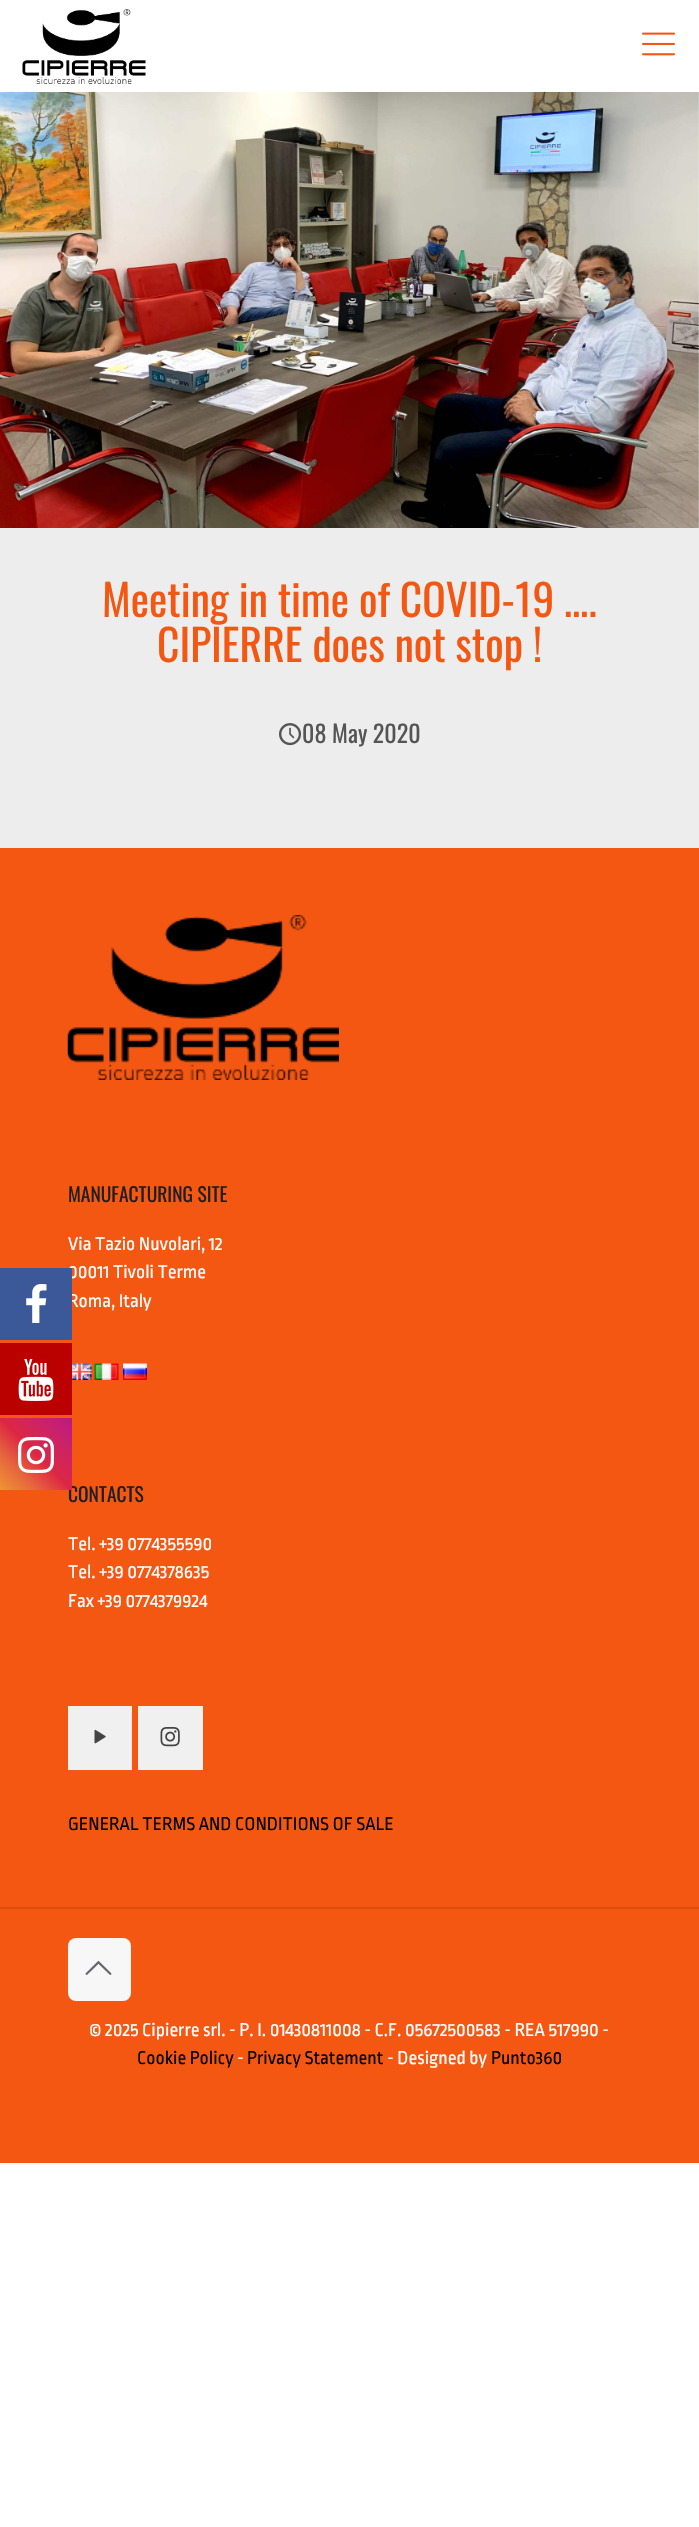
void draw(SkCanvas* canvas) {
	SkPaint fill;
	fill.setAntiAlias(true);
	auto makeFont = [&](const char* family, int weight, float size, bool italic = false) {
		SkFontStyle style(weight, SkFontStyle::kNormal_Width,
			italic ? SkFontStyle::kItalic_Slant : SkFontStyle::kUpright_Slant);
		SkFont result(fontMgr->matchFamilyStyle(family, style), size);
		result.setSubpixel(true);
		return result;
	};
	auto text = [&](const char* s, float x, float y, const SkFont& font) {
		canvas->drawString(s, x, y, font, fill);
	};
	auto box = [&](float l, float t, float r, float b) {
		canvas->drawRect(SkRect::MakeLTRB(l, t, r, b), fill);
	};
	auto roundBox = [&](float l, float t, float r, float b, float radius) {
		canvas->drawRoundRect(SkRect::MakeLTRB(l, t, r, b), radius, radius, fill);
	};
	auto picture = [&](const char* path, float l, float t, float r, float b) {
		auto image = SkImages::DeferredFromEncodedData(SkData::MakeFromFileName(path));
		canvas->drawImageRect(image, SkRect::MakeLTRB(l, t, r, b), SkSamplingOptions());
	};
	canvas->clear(0xFFFFFFFF);
	fill.setColor(0xFFF35712);
	box(0, 848, 699, 2163);
	fill.setColor(0xFFBB0000);
	box(0, 1343, 72, 1415);
	picture("image1.png", 18, 1359, 54, 1401);
	picture("image3.png", 22, 9, 146, 84);
	picture("image4.png", 642, 32, 675, 56);
	picture("image5.png", 0, 92, 699, 528);
	fill.setColor(0xFFEDEDED);
	box(0, 528, 699, 848);
	picture("image6.png", 279, 723, 302, 746);
	picture("image7.png", 67, 915, 339, 1080);
	picture("image8.png", 72, 1363, 92, 1380);
	picture("image9.png", 94, 1363, 119, 1380);
	picture("image10.png", 123, 1363, 147, 1380);
	fill.setColor(0xFFF0F0F0);
	box(68, 1706, 132, 1770);
	picture("image11.png", 94, 1729, 106, 1744);
	box(138, 1706, 203, 1770);
	picture("image12.png", 160, 1727, 180, 1747);
	fill.setColor(0xFFDB4E10);
	box(0, 1907, 699, 1909);
	fill.setColor(0xFFF7F7F7);
	roundBox(68, 1938, 131, 2001, 8);
	picture("image13.png", 85, 1961, 112, 1975);
	auto font1 = makeFont("Oswald", 400, 43.5f);
	fill.setColor(0xFFF35712);
	text("Meeting in time of COVID-19 ….", 102, 617, font1);
	text("CIPIERRE does not stop !", 157, 662, font1);
	auto font2 = makeFont("Oswald", 400, 24);
	fill.setColor(0xFF555555);
	text("08 May 2020", 302, 743, font2);
	auto font3 = makeFont("Oswald", 400, 19.5f);
	fill.setColor(0xFF1F1F1F);
	text("MANUFACTURING SITE", 68, 1202, font3);
	auto font4 = makeFont("Ropa Sans", 400, 19.5f);
	fill.setColor(0xFFFFFFFF);
	text("Via Tazio Nuvolari, 12", 68, 1250, font4);
	text("00011 Tivoli Terme", 68, 1278, font4);
	text("Roma, Italy", 68, 1307, font4);
	fill.setColor(0xFF3B5998);
	box(0, 1268, 72, 1340);
	picture("image0.png", 26, 1284, 47, 1323);
	fill.setColor(0xFF1F1F1F);
	text("CONTACTS", 68, 1502, font3);
	{
		const SkColor colors[] = {0xFFF09433, 0xFFE6683C, 0xFFDC2743, 0xFFCC2366, 0xFFBC1888};
		const float stops[] = {0, 0.25f, 0.5f, 0.75f, 1};
		const SkPoint ends[] = {{0, 1490}, {72, 1418}};
		fill.setShader(SkGradientShader::MakeLinear(ends, colors, stops, 5, SkTileMode::kClamp));
		fill.setAlpha(255);
	}
	box(0, 1418, 72, 1490);
	picture("image2.png", 18, 1437, 54, 1473);
	fill.setShader(nullptr);
	fill.setColor(0xFFFFFFFF);
	text("Tel. +39 0774355590", 68, 1550, font4);
	text("Tel. +39 0774378635", 68, 1578, font4);
	text("Fax +39 0774379924", 68, 1607, font4);
	fill.setColor(0xFF020202);
	text("GENERAL TERMS AND CONDITIONS OF SALE", 68, 1830, font4);
	fill.setColor(0xFFFFFFFF);
	text("© 2025 Cipierre srl. - P. I. 01430811008 - C.F. 05672500583 - REA 517990 -", 89, 2036, font4);
	fill.setColor(0xFF020202);
	text("Cookie Policy", 137, 2064, font4);
	fill.setColor(0xFFFFFFFF);
	text("-", 237, 2064, font4);
	fill.setColor(0xFF020202);
	text("Privacy Statement", 247, 2064, font4);
	fill.setColor(0xFFFFFFFF);
	text("- Designed by", 387, 2064, font4);
	fill.setColor(0xFF020202);
	text("Punto360", 491, 2064, font4);
}
